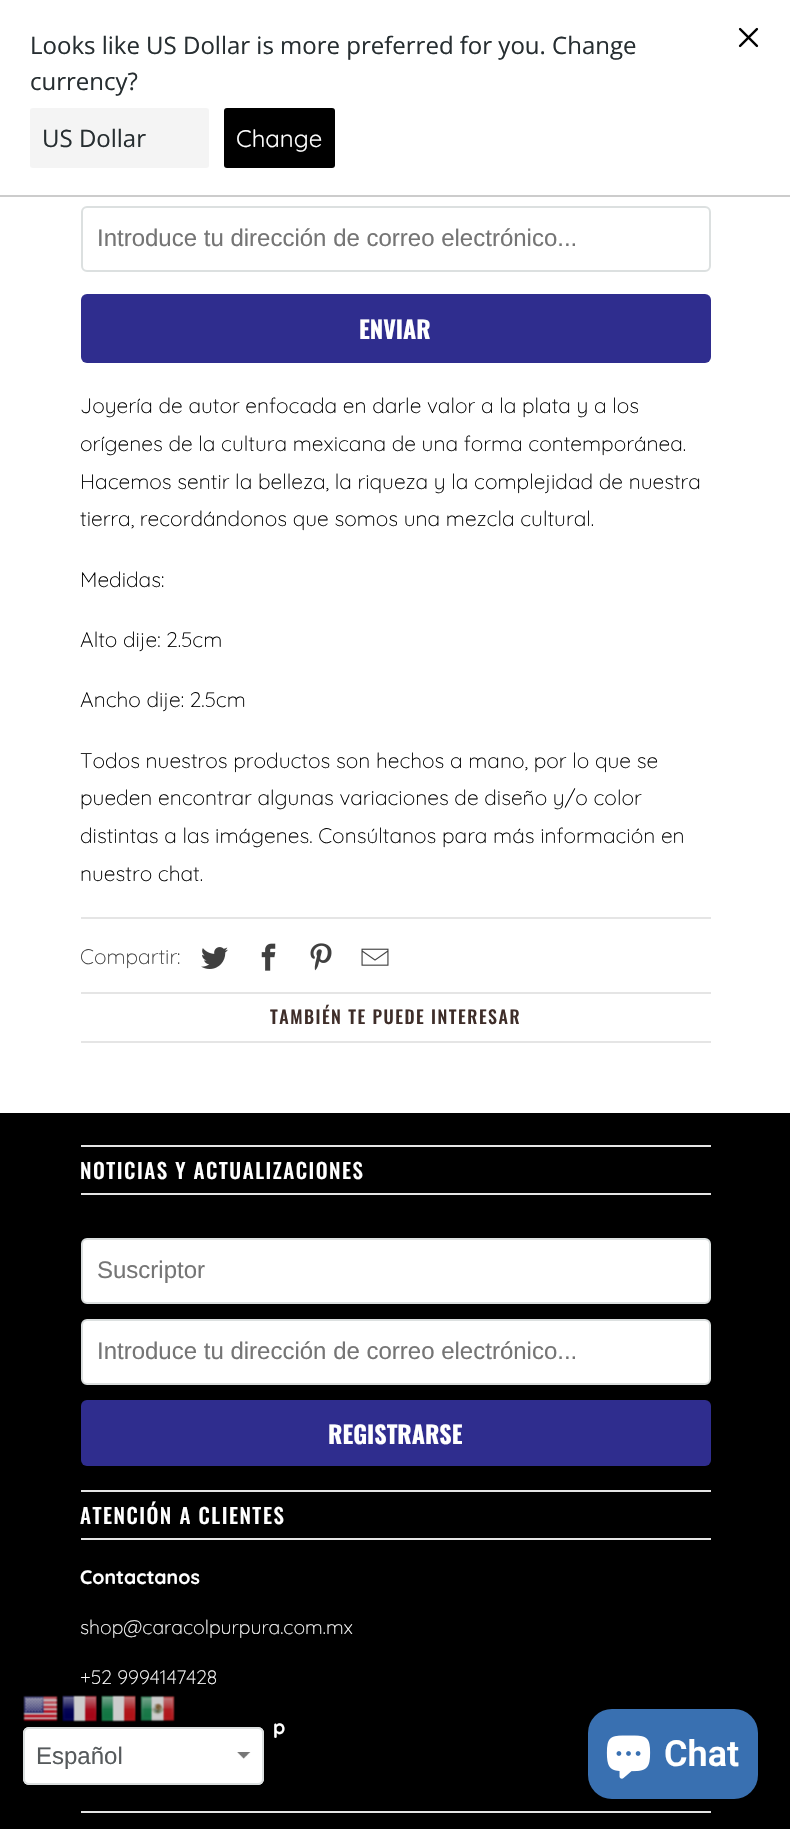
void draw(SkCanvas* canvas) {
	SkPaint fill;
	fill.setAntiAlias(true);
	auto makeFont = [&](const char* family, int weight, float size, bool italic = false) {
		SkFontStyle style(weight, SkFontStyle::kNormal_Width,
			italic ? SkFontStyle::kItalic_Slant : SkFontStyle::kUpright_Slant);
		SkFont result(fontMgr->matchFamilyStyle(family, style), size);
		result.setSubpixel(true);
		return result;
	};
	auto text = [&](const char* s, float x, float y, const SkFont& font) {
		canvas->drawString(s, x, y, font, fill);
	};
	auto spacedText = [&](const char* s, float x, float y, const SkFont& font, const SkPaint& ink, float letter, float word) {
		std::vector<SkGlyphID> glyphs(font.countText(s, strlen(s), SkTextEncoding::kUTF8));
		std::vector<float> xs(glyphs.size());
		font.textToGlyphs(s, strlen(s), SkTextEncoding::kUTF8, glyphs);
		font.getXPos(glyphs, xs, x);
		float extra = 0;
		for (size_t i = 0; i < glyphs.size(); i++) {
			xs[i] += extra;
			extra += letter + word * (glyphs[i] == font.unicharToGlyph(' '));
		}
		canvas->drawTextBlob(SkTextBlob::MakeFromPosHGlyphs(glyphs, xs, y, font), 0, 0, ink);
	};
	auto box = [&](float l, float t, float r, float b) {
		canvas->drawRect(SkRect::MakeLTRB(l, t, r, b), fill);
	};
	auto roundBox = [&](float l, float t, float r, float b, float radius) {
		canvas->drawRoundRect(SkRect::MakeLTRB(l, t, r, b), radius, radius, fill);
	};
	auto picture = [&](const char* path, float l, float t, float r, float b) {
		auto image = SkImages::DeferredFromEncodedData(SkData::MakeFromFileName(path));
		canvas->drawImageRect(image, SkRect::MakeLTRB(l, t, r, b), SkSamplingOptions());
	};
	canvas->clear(0xFFFFFFFF);
	fill.setColor(0xFFCCCCCC);
	box(0, 195, 790, 197);
	fill.setColor(0xFFF4F4F4);
	roundBox(30, 108, 209, 168, 3);
	fill.setColor(0xFF000000);
	roundBox(224, 108, 335, 168, 3);
	picture("image0.png", 738, 27, 759, 48);
	fill.setStyle(SkPaint::kStroke_Style);
	fill.setStrokeWidth(2);
	fill.setColor(0xFFDCE0E0);
	canvas->drawRoundRect(SkRect::MakeLTRB(82, 207, 710, 271), 5, 5, fill);
	fill.setStyle(SkPaint::kFill_Style);
	fill.setColor(0xFF2F2D8E);
	roundBox(81, 294, 711, 363, 6);
	fill.setColor(0xFFE5E5E5);
	box(81, 917, 711, 919);
	picture("image1.png", 201, 947, 228, 969);
	picture("image2.png", 261, 943, 276, 971);
	picture("image3.png", 310, 943, 332, 971);
	picture("image4.png", 361, 948, 389, 966);
	box(81, 992, 711, 994);
	box(81, 1041, 711, 1043);
	fill.setColor(0xFF000000);
	box(0, 1113, 790, 1829);
	fill.setColor(0xFFE5E5E5);
	box(81, 1145, 711, 1147);
	box(81, 1193, 711, 1195);
	fill.setColor(0xFFFFFFFF);
	canvas->drawRoundRect(SkRect::MakeLTRB(82, 1239, 710, 1303), 5, 5, fill);
	fill.setStyle(SkPaint::kStroke_Style);
	fill.setColor(0xFFDCE0E0);
	canvas->drawRoundRect(SkRect::MakeLTRB(82, 1239, 710, 1303), 5, 5, fill);
	fill.setStyle(SkPaint::kFill_Style);
	fill.setColor(0xFFFFFFFF);
	canvas->drawRoundRect(SkRect::MakeLTRB(82, 1320, 710, 1384), 5, 5, fill);
	fill.setStyle(SkPaint::kStroke_Style);
	fill.setColor(0xFFDCE0E0);
	canvas->drawRoundRect(SkRect::MakeLTRB(82, 1320, 710, 1384), 5, 5, fill);
	fill.setStyle(SkPaint::kFill_Style);
	fill.setColor(0xFF2F2D8E);
	roundBox(81, 1400, 711, 1466, 6);
	fill.setColor(0xFFE5E5E5);
	box(81, 1490, 711, 1492);
	box(81, 1538, 711, 1540);
	box(81, 1811, 711, 1813);
	picture("image5.png", 23, 1695, 58, 1722);
	picture("image6.png", 62, 1695, 97, 1724);
	picture("image7.png", 101, 1695, 136, 1724);
	picture("image8.png", 140, 1695, 175, 1723);
	fill.setColor(0xFFFFFFFF);
	roundBox(23, 1727, 264, 1785, 6);
	picture("image9.png", 237, 1752, 251, 1759);
	fill.setStyle(SkPaint::kStroke_Style);
	fill.setColor(0xFFDCE0E0);
	canvas->drawRoundRect(SkRect::MakeLTRB(24, 1728, 263, 1784), 5, 5, fill);
	fill.setStyle(SkPaint::kFill_Style);
	fill.setColor(0xFF3970B1);
	roundBox(588, 1709, 758, 1799, 24);
	picture("image10.png", 606, 1735, 651, 1779);
	auto font1 = makeFont("Open Sans", 400, 24);
	fill.setColor(0xFF272E31);
	text("Looks like US Dollar is more preferred for you. Change", 30, 54, font1);
	text("currency?", 30, 90, font1);
	text("US Dollar", 42, 147, font1);
	auto font2 = makeFont("Quicksand", 400, 24);
	fill.setColor(0xFFFFFFFF);
	text("Change", 236, 147, font2);
	auto font3 = makeFont("Liberation Sans", 400, 24);
	fill.setColor(0xFF757575);
	text("Introduce tu dirección de correo electrónico...", 97, 246, font3);
	auto font4 = makeFont("Oswald", 700, 24);
	fill.setColor(0xFFFFFFFF);
	text("ENVIAR", 359, 339, font4);
	auto font5 = makeFont("Quicksand", 300, 21);
	fill.setColor(0xFF000000);
	text("Joyería de autor enfocada en darle valor a la plata y a los", 80, 413, font5);
	text("orígenes de la cultura mexicana de una forma contemporánea.", 80, 451, font5);
	text("Hacemos sentir la belleza, la riqueza y la complejidad de nuestra", 80, 489, font5);
	text("tierra, recordándonos que somos una mezcla cultural.", 80, 526, font5);
	text("Medidas:", 80, 587, font5);
	text("Alto dije: 2.5cm", 80, 647, font5);
	text("Ancho dije: 2.5cm", 80, 707, font5);
	text("Todos nuestros productos son hechos a mano, por lo que se", 80, 768, font5);
	text("pueden encontrar algunas variaciones de diseño y/o color", 80, 805, font5);
	text("distintas a las imágenes. Consúltanos para más información en", 80, 843, font5);
	text("nuestro chat.", 80, 881, font5);
	fill.setColor(0xFF404040);
	text("Compartir:", 80, 964, font5);
	auto font6 = makeFont("Oswald", 500, 18);
	fill.setColor(0xFF3E2D29);
	spacedText("TAMBIÉN TE PUEDE INTERESAR", 270, 1024, font6, fill, 1.5f, 0);
	auto font7 = makeFont("Oswald", 500, 21);
	fill.setColor(0xFFFFFFFF);
	spacedText("NOTICIAS Y ACTUALIZACIONES", 80, 1179, font7, fill, 1.5f, 0);
	fill.setColor(0xFF757575);
	text("Suscriptor", 97, 1278, font3);
	text("Introduce tu dirección de correo electrónico...", 97, 1359, font3);
	fill.setColor(0xFFFFFFFF);
	text("REGISTRARSE", 328, 1444, font4);
	spacedText("ATENCIÓN A CLIENTES", 80, 1524, font7, fill, 1.5f, 0);
	auto font8 = makeFont("Quicksand", 700, 19.5f);
	text("Contactanos", 80, 1584, font8);
	auto font9 = makeFont("Quicksand", 300, 19.5f);
	text("shop@caracolpurpura.com.mx", 80, 1634, font9);
	text("+52 9994147428", 80, 1684, font9);
	text("p", 273, 1734, font8);
	fill.setColor(0xFF565A5C);
	text("Español", 36, 1764, font3);
	auto font10 = makeFont("Roboto", 600, 36);
	fill.setColor(0xFFFFFFFF);
	text("Chat", 664, 1766, font10);
}
